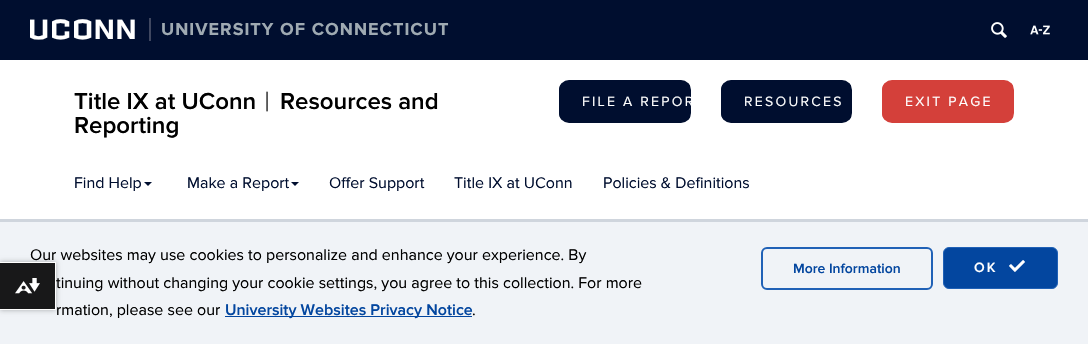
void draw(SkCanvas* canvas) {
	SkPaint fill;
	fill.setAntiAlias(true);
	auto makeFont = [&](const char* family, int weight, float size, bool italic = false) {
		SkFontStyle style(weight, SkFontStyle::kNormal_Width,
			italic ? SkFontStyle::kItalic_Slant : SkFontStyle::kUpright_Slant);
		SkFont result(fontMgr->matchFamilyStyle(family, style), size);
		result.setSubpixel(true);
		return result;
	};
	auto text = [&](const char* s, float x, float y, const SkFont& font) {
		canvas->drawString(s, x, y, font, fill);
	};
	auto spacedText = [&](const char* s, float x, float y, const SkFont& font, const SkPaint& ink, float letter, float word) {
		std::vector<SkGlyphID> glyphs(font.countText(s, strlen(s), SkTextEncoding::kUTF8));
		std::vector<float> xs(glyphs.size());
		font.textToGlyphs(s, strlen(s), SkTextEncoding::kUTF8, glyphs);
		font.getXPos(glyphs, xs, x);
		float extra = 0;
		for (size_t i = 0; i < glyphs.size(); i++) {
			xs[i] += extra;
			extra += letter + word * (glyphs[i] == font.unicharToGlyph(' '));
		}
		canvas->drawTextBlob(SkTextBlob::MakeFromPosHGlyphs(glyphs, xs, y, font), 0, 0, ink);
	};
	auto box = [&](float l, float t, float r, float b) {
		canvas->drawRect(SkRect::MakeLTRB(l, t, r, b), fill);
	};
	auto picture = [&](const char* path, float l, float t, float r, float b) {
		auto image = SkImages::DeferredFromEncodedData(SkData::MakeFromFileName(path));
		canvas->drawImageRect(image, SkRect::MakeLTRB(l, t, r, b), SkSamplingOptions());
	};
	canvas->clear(0xFFFFFFFF);
	fill.setColor(0xFF000E2F);
	box(0, 0, 1088, 60);
	fill.setColor(0xFF3F4760);
	box(149, 18, 151, 41);
	picture("image0.png", 991, 22, 1007, 38);
	picture("image1.png", 1030, 25, 1050, 35);
	canvas->save();
	canvas->clipPath(SkPathBuilder().moveTo(569, 80).lineTo(681, 80).cubicTo(686.5f, 80, 691, 84.5f, 691, 90).lineTo(691, 113).cubicTo(691, 118.5f, 686.5f, 123, 681, 123).lineTo(569, 123).cubicTo(563.5f, 123, 559, 118.5f, 559, 113).lineTo(559, 90).cubicTo(559, 84.5f, 563.5f, 80, 569, 80).close().detach(), true);
	fill.setColor(0xFF000E2F);
	box(559, 83, 690, 120);
	canvas->restore();
	fill.setStyle(SkPaint::kStroke_Style);
	fill.setStrokeWidth(3);
	canvas->drawRoundRect(SkRect::MakeLTRB(560.5f, 81.5f, 689.5f, 121.5f), 8.5f, 8.5f, fill);
	canvas->save();
	canvas->clipPath(SkPathBuilder().moveTo(731, 80).lineTo(842, 80).cubicTo(847.5f, 80, 852, 84.5f, 852, 90).lineTo(852, 113).cubicTo(852, 118.5f, 847.5f, 123, 842, 123).lineTo(731, 123).cubicTo(725.5f, 123, 721, 118.5f, 721, 113).lineTo(721, 90).cubicTo(721, 84.5f, 725.5f, 80, 731, 80).close().detach(), true);
	fill.setStyle(SkPaint::kFill_Style);
	box(721, 83, 851, 120);
	canvas->restore();
	fill.setStyle(SkPaint::kStroke_Style);
	canvas->drawRoundRect(SkRect::MakeLTRB(722.5f, 81.5f, 850.5f, 121.5f), 8.5f, 8.5f, fill);
	canvas->save();
	canvas->clipPath(SkPathBuilder().moveTo(892, 80).lineTo(1004, 80).cubicTo(1009.5f, 80, 1014, 84.5f, 1014, 90).lineTo(1014, 113).cubicTo(1014, 118.5f, 1009.5f, 123, 1004, 123).lineTo(892, 123).cubicTo(886.5f, 123, 882, 118.5f, 882, 113).lineTo(882, 90).cubicTo(882, 84.5f, 886.5f, 80, 892, 80).close().detach(), true);
	fill.setStyle(SkPaint::kFill_Style);
	fill.setColor(0xFFD4403A);
	box(882, 83, 1013, 120);
	canvas->restore();
	fill.setStyle(SkPaint::kStroke_Style);
	canvas->drawRoundRect(SkRect::MakeLTRB(883.5f, 81.5f, 1012.5f, 121.5f), 8.5f, 8.5f, fill);
	fill.setStyle(SkPaint::kFill_Style);
	fill.setColor(0xFF000E2F);
	canvas->drawPath(SkPathBuilder().moveTo(144, 182).lineTo(152, 182).lineTo(148, 186).close().detach(), fill);
	canvas->drawPath(SkPathBuilder().moveTo(291, 182).lineTo(299, 182).lineTo(295, 186).close().detach(), fill);
	fill.setColor(0xFFF0F3F7);
	box(0, 222, 1088, 344);
	fill.setColor(0xFFCFD5DD);
	box(0, 219, 1088, 222);
	fill.setColor(0xFF03469F);
	box(225, 316, 472, 317);
	fill.setStyle(SkPaint::kStroke_Style);
	fill.setStrokeWidth(2);
	fill.setColor(0xFF2061B6);
	canvas->drawRoundRect(SkRect::MakeLTRB(762, 248, 932, 289), 5, 5, fill);
	fill.setStyle(SkPaint::kFill_Style);
	fill.setColor(0xFF03469F);
	canvas->drawRoundRect(SkRect::MakeLTRB(943.5f, 247.5f, 1057.5f, 288.5f), 5.5f, 5.5f, fill);
	fill.setStyle(SkPaint::kStroke_Style);
	fill.setStrokeWidth(1);
	fill.setColor(0xFF2061B6);
	canvas->drawRoundRect(SkRect::MakeLTRB(943.5f, 247.5f, 1057.5f, 288.5f), 5.5f, 5.5f, fill);
	picture("image2.png", 1009, 260, 1025, 272);
	canvas->save();
	canvas->clipPath(SkPathBuilder(SkPathFillType::kEvenOdd).moveTo(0, 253).lineTo(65, 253).lineTo(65, 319).lineTo(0, 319).close().moveTo(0, 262).lineTo(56, 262).lineTo(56, 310).lineTo(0, 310).close().detach(), true);
	fill.setStyle(SkPaint::kFill_Style);
	fill.setColor(0x4D000000);
	fill.setMaskFilter(SkMaskFilter::MakeBlur(kNormal_SkBlurStyle, 2.5f));
	canvas->drawRect(SkRect::MakeLTRB(0, 262, 56, 310), fill);
	fill.setMaskFilter(nullptr);
	canvas->restore();
	auto font1 = makeFont("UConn", 400, 32);
	fill.setColor(0xFFFFFFFF);
	spacedText("UCONN", 30, 39, font1, fill, 3, 0);
	auto font2 = makeFont("Proxima Nova", 700, 18);
	fill.setColor(0xFF9FAAB2);
	spacedText("UNIVERSITY OF CONNECTICUT", 161, 35, font2, fill, 1, 0);
	auto font3 = makeFont("Proxima Nova", 600, 24);
	fill.setColor(0xFF000000);
	text("Title IX at UConn", 74, 109, font3);
	auto font4 = makeFont("WenQuanYi Zen Hei", 500, 24);
	text("︱", 256, 109, font4);
	text("Resources and", 280, 109, font3);
	text("Reporting", 74, 133, font3);
	auto font5 = makeFont("Proxima Nova", 400, 14);
	fill.setColor(0xFFFFFFFF);
	spacedText("FILE A REPOR", 582, 106, font5, fill, 2.25f, 0);
	spacedText("RESOURCES", 744, 106, font5, fill, 2.25f, 0);
	spacedText("EXIT PAGE", 905, 106, font5, fill, 2.25f, 0);
	auto font6 = makeFont("Proxima Nova", 400, 16);
	fill.setColor(0xFF000E2F);
	text("Find Help", 74, 188, font6);
	text("Make a Report", 187, 188, font6);
	text("Offer Support", 329, 188, font6);
	text("Title IX at UConn", 454, 188, font6);
	text("Policies & Definitions", 603, 188, font6);
	fill.setColor(0xFF000000);
	text("Our websites may use cookies to personalize and enhance your experience. By", 30, 260, font6);
	text("tinuing without changing your cookie settings, you agree to this collection. For more", 56, 288, font6);
	text("rmation, please see our", 56, 315, font6);
	auto font7 = makeFont("Proxima Nova", 600, 16);
	fill.setColor(0xFF03469F);
	text("University Websites Privacy Notice", 225, 315, font7);
	fill.setColor(0xFF000000);
	text(".", 472, 315, font6);
	auto font8 = makeFont("Proxima Nova", 600, 14);
	fill.setColor(0xFF03469F);
	text("More Information", 793, 273, font8);
	fill.setColor(0xFFFFFFFF);
	spacedText("OK", 974, 272, font8, fill, 2, 0);
	fill.setColor(0xE6000000);
	box(0, 263, 55, 309);
	fill.setColor(0xFFFFFFFF);
	box(0, 262, 56, 263);
	box(55, 262, 56, 310);
	box(0, 309, 56, 310);
	picture("image3.png", 15, 278, 40, 294);
}
